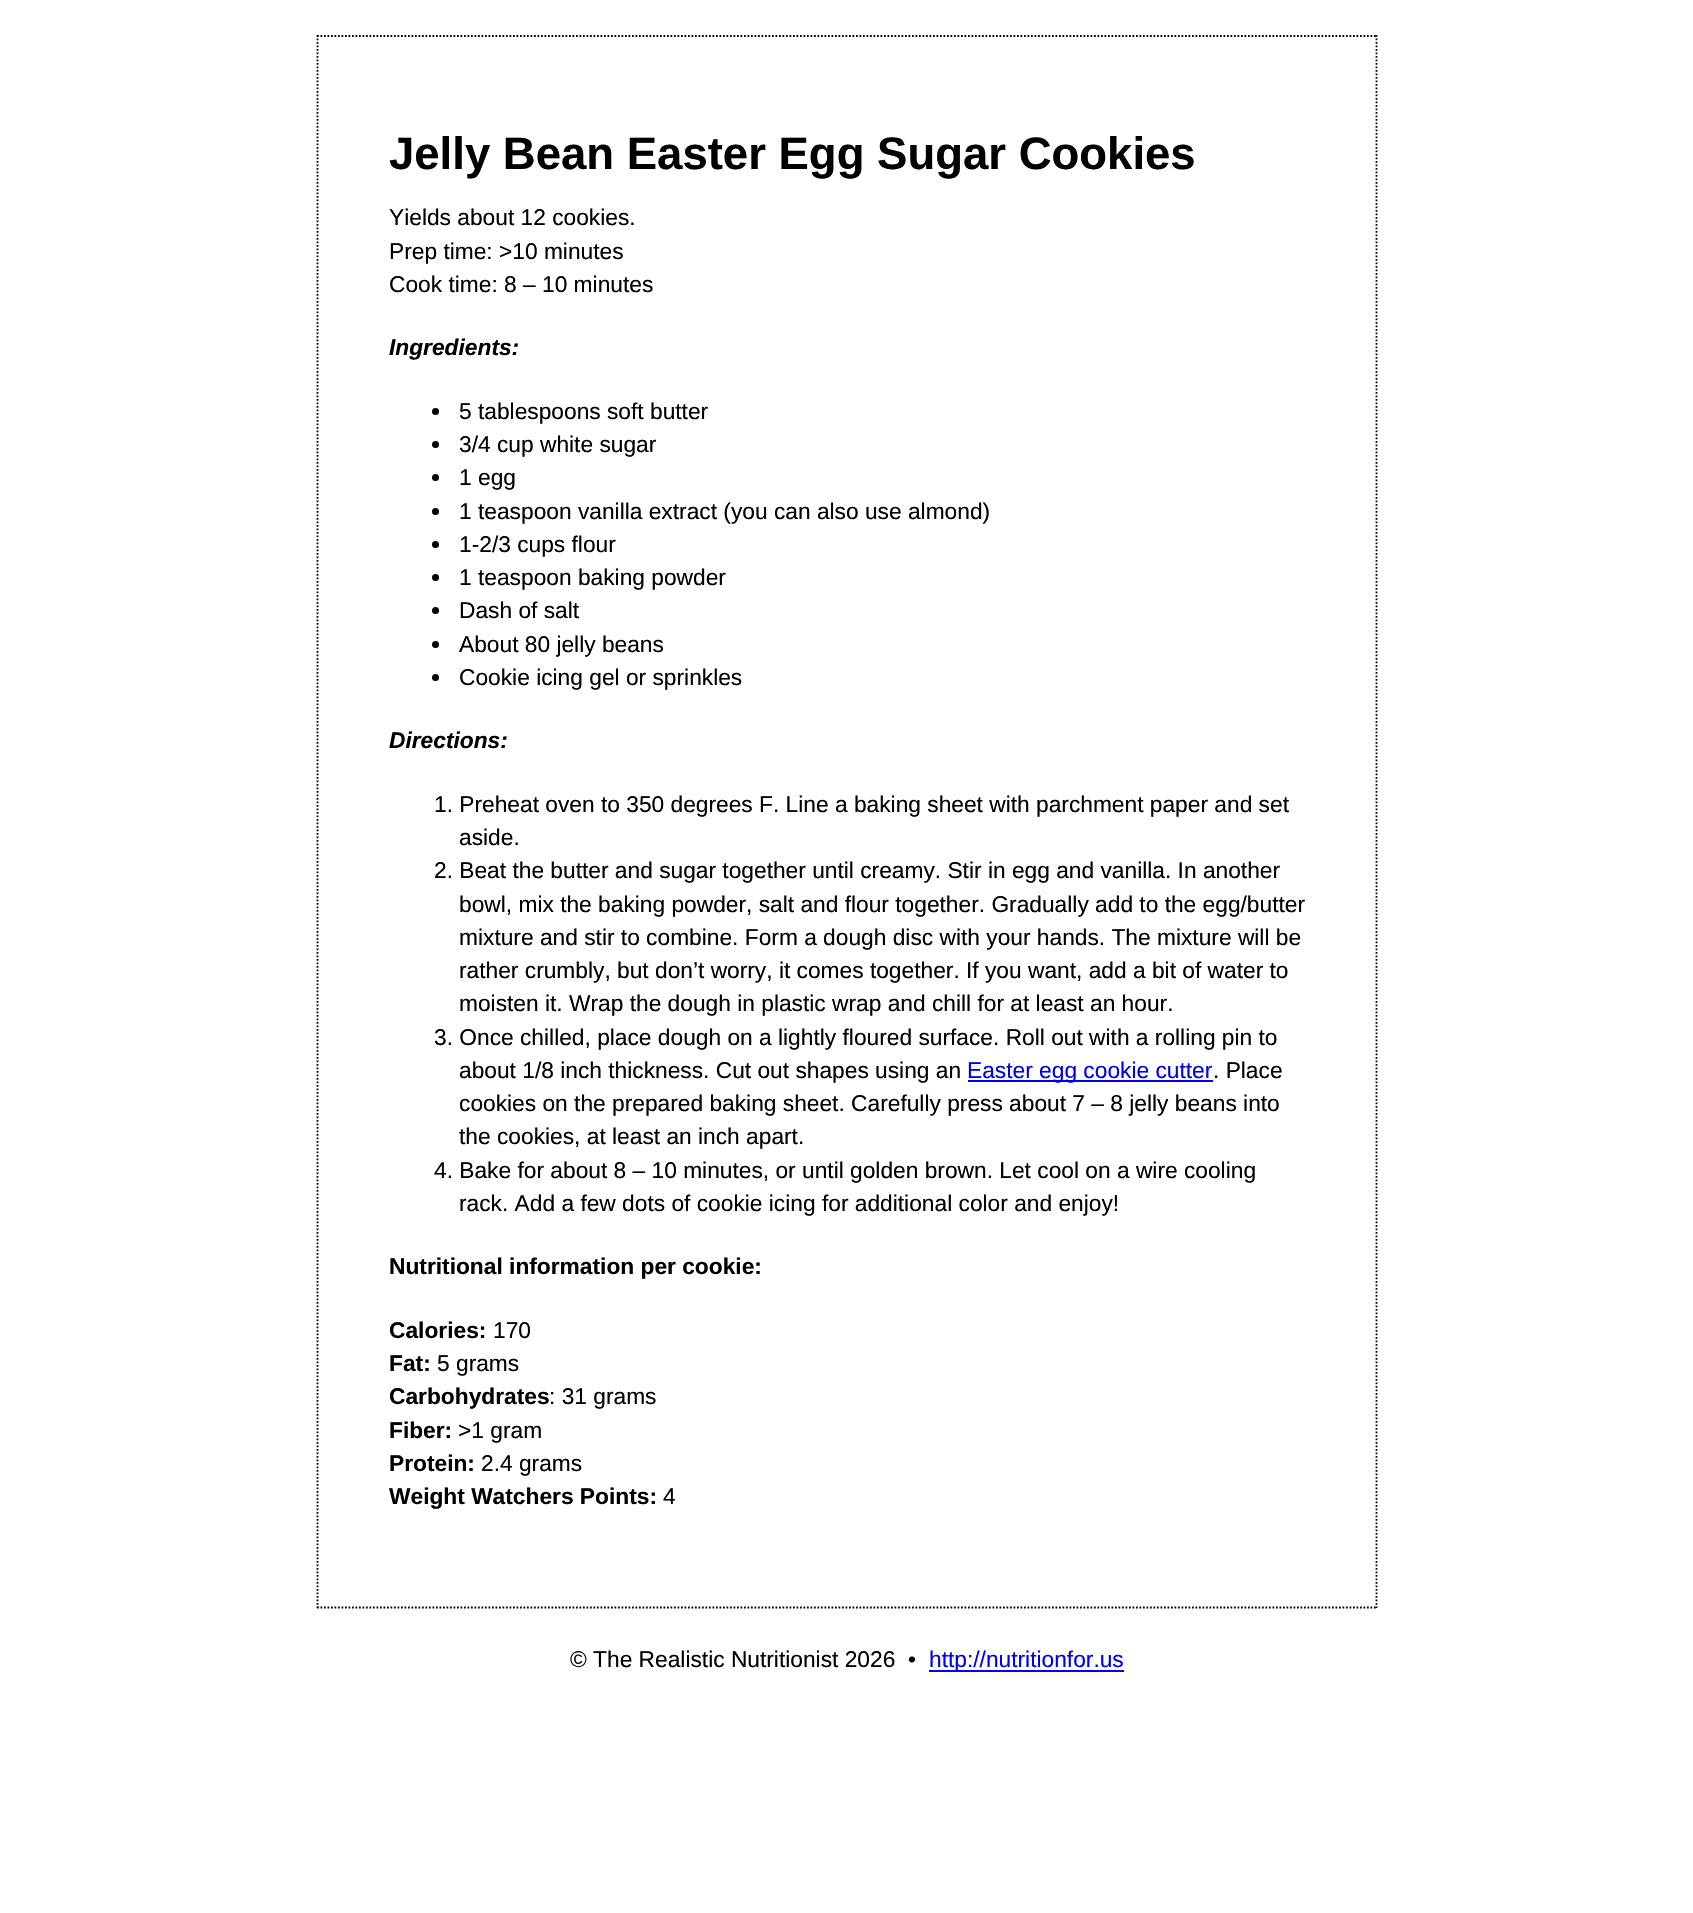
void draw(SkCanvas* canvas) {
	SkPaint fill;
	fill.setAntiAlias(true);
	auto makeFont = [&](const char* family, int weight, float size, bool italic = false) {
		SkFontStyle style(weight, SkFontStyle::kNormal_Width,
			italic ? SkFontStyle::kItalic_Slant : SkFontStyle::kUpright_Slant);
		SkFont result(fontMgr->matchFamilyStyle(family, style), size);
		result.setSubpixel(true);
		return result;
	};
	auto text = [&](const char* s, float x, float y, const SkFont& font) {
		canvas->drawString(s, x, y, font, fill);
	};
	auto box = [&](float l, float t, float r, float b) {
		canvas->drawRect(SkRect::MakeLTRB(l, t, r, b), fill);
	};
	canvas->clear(0xFFFFFFFF);
	fill.setStyle(SkPaint::kStroke_Style);
	fill.setStrokeWidth(1.8f);
	fill.setColor(0xFF000000);
	fill.setPathEffect(SkDashPathEffect::Make({{1.75f, 1.75f}}, 0));
	canvas->drawPath(SkPathBuilder().moveTo(317, 36).lineTo(1377, 36).detach(), fill);
	fill.setPathEffect(nullptr);
	fill.setPathEffect(SkDashPathEffect::Make({{1.75f, 1.75f}}, 0));
	canvas->drawPath(SkPathBuilder().moveTo(1376.5f, 35).lineTo(1376.5f, 1608).detach(), fill);
	fill.setPathEffect(nullptr);
	fill.setPathEffect(SkDashPathEffect::Make({{1.75f, 1.75f}}, 0));
	canvas->drawPath(SkPathBuilder().moveTo(317, 1607.5f).lineTo(1377, 1607.5f).detach(), fill);
	fill.setPathEffect(nullptr);
	fill.setPathEffect(SkDashPathEffect::Make({{1.75f, 1.75f}}, 0));
	canvas->drawPath(SkPathBuilder().moveTo(317.5f, 35).lineTo(317.5f, 1608).detach(), fill);
	fill.setPathEffect(nullptr);
	fill.setStyle(SkPaint::kFill_Style);
	canvas->drawCircle(435.5f, 411.5f, 3.5f, fill);
	canvas->drawCircle(435.5f, 444.5f, 3.5f, fill);
	canvas->drawCircle(435.5f, 477.5f, 3.5f, fill);
	canvas->drawCircle(435.5f, 511.5f, 3.5f, fill);
	canvas->drawCircle(435.5f, 544.5f, 3.5f, fill);
	canvas->drawCircle(435.5f, 577.5f, 3.5f, fill);
	canvas->drawCircle(435.5f, 610.5f, 3.5f, fill);
	canvas->drawCircle(435.5f, 644.5f, 3.5f, fill);
	canvas->drawCircle(435.5f, 677.5f, 3.5f, fill);
	fill.setColor(0xFF0000EE);
	box(968, 1080, 1213, 1082);
	box(929, 1670, 1124, 1672);
	auto font1 = makeFont("Liberation Sans", 700, 45.5f);
	fill.setColor(0xFF000000);
	text("Jelly Bean Easter Egg Sugar Cookies", 389, 169, font1);
	auto font2 = makeFont("Liberation Sans", 400, 22.75f);
	text("Yields about 12 cookies.", 389, 225, font2);
	text("Prep time: >10 minutes", 389, 259, font2);
	text("Cook time: 8 – 10 minutes", 389, 292, font2);
	auto font3 = makeFont("Liberation Sans", 700, 22.75f, true);
	text("Ingredients:", 389, 355, font3);
	text("5 tablespoons soft butter", 459, 419, font2);
	text("3/4 cup white sugar", 459, 452, font2);
	text("1 egg", 459, 485, font2);
	text("1 teaspoon vanilla extract (you can also use almond)", 459, 519, font2);
	text("1-2/3 cups flour", 459, 552, font2);
	text("1 teaspoon baking powder", 459, 585, font2);
	text("Dash of salt", 459, 618, font2);
	text("About 80 jelly beans", 459, 652, font2);
	text("Cookie icing gel or sprinkles", 459, 685, font2);
	text("Directions:", 389, 748, font3);
	text("1. Preheat oven to 350 degrees F. Line a baking sheet with parchment paper and set", 434, 812, font2);
	text("aside.", 459, 845, font2);
	text("2. Beat the butter and sugar together until creamy. Stir in egg and vanilla. In another", 434, 878, font2);
	text("bowl, mix the baking powder, salt and flour together. Gradually add to the egg/butter", 459, 912, font2);
	text("mixture and stir to combine. Form a dough disc with your hands. The mixture will be", 459, 945, font2);
	text("rather crumbly, but don’t worry, it comes together. If you want, add a bit of water to", 459, 978, font2);
	text("moisten it. Wrap the dough in plastic wrap and chill for at least an hour.", 459, 1011, font2);
	text("3. Once chilled, place dough on a lightly floured surface. Roll out with a rolling pin to", 434, 1045, font2);
	text("about 1/8 inch thickness. Cut out shapes using an", 459, 1078, font2);
	fill.setColor(0xFF0000EE);
	text("Easter egg cookie cutter", 967, 1078, font2);
	fill.setColor(0xFF000000);
	text(". Place", 1213, 1078, font2);
	text("cookies on the prepared baking sheet. Carefully press about 7 – 8 jelly beans into", 459, 1111, font2);
	text("the cookies, at least an inch apart.", 459, 1144, font2);
	text("4. Bake for about 8 – 10 minutes, or until golden brown. Let cool on a wire cooling", 434, 1178, font2);
	text("rack. Add a few dots of cookie icing for additional color and enjoy!", 459, 1211, font2);
	auto font4 = makeFont("Liberation Sans", 700, 22.75f);
	text("Nutritional information per cookie:", 389, 1274, font4);
	text("Calories:", 389, 1338, font4);
	text("170", 493, 1338, font2);
	text("Fat:", 389, 1371, font4);
	text("5 grams", 437, 1371, font2);
	text("Carbohydrates", 389, 1404, font4);
	text(": 31 grams", 549, 1404, font2);
	text("Fiber:", 389, 1438, font4);
	text(">1 gram", 458, 1438, font2);
	text("Protein:", 389, 1471, font4);
	text("2.4 grams", 481, 1471, font2);
	text("Weight Watchers Points:", 389, 1504, font4);
	text("4", 663, 1504, font2);
	text("© The Realistic Nutritionist 2026  •", 570, 1667, font2);
	fill.setColor(0xFF0000EE);
	text("http://nutritionfor.us", 929, 1667, font2);
}
